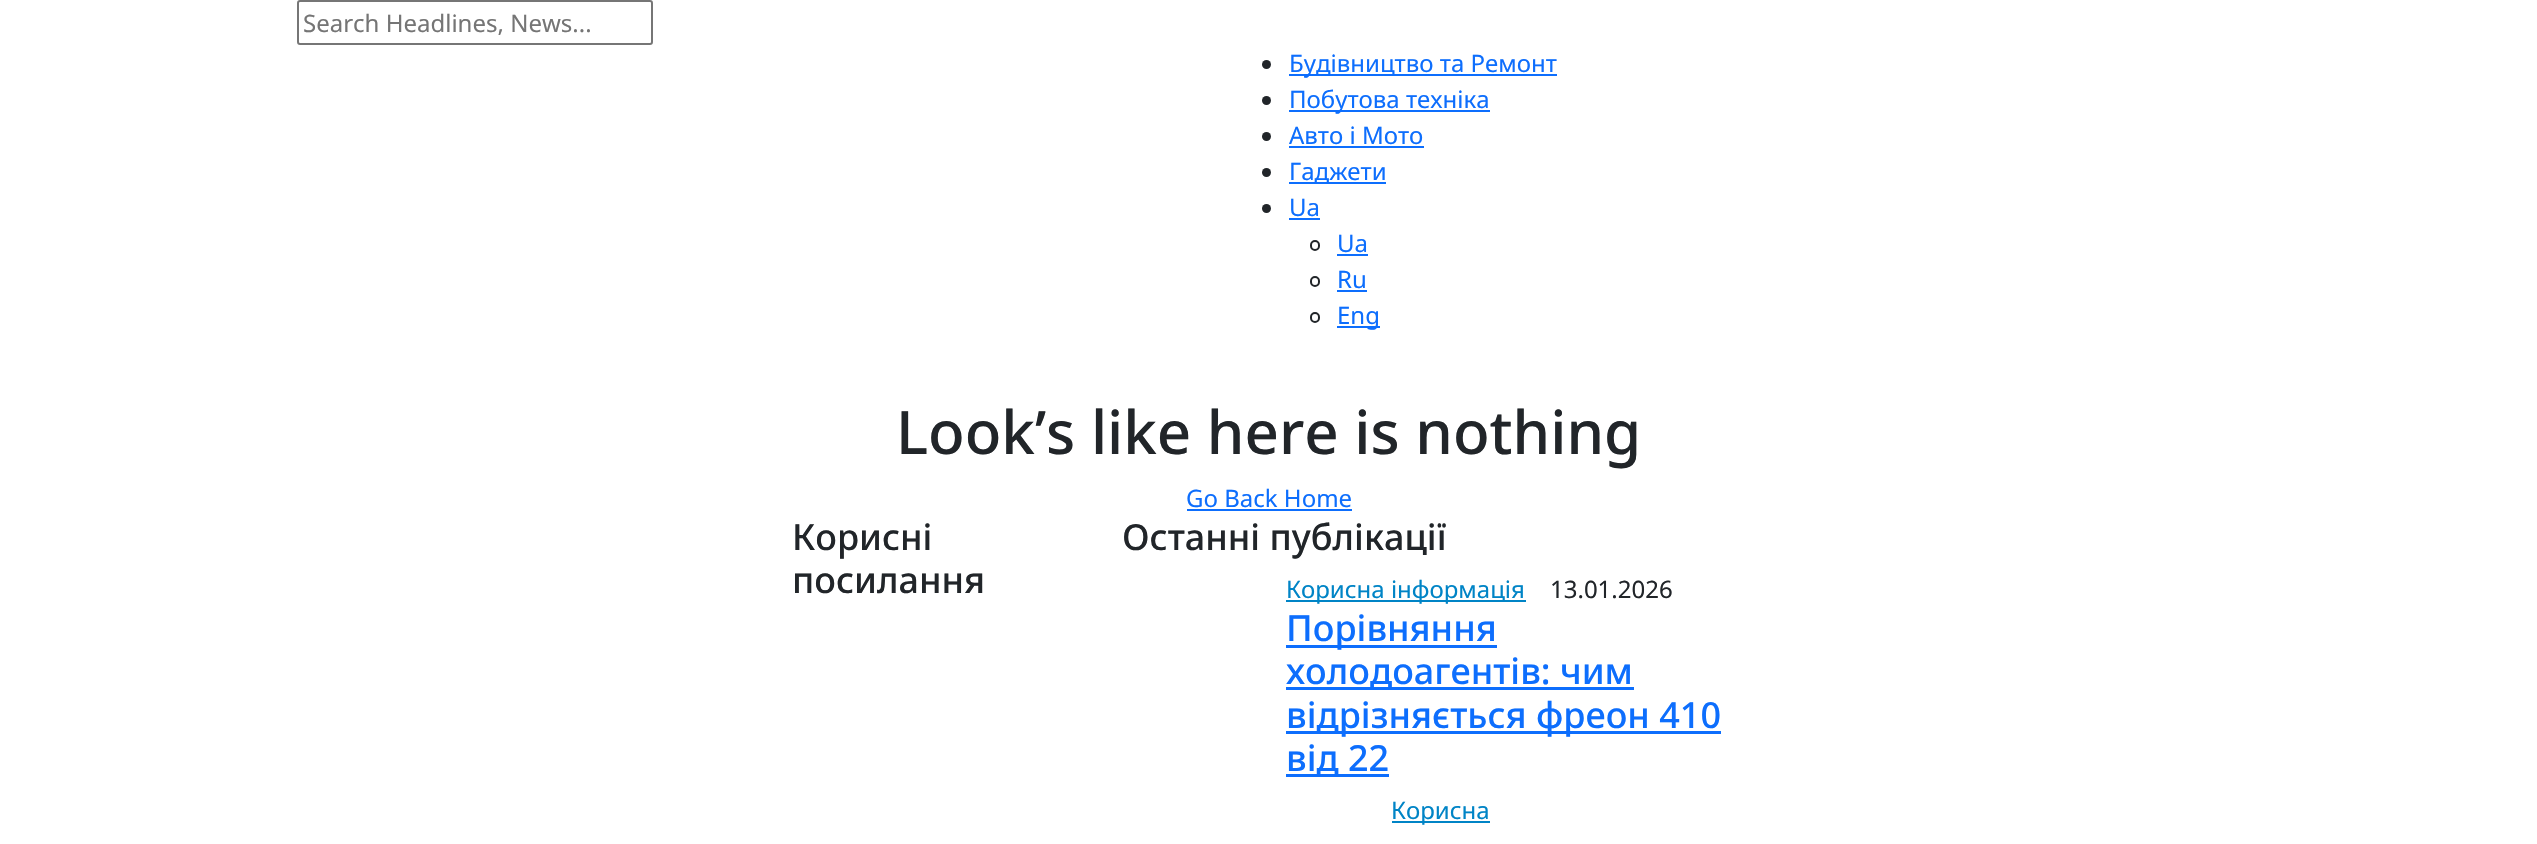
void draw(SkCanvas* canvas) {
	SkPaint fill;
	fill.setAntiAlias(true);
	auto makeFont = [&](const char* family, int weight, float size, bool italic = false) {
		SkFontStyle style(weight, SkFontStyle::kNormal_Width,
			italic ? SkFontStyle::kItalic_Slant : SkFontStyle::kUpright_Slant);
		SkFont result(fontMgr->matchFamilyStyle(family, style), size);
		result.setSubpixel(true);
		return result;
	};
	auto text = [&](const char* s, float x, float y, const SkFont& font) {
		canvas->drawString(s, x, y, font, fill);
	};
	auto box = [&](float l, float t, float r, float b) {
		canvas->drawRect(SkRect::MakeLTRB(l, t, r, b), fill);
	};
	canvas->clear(0xFFFFFFFF);
	fill.setStyle(SkPaint::kStroke_Style);
	fill.setStrokeWidth(2);
	fill.setColor(0xFF767676);
	canvas->drawRoundRect(SkRect::MakeLTRB(298, 1, 652, 44), 2, 2, fill);
	fill.setStyle(SkPaint::kFill_Style);
	fill.setColor(0xFF212529);
	canvas->drawCircle(1266.5f, 64.5f, 4.5f, fill);
	fill.setColor(0xFF0D6EFD);
	box(1289, 74, 1557, 76);
	fill.setColor(0xFF212529);
	canvas->drawCircle(1266.5f, 100.5f, 4.5f, fill);
	fill.setColor(0xFF0D6EFD);
	box(1289, 110, 1490, 112);
	fill.setColor(0xFF212529);
	canvas->drawCircle(1266.5f, 136.5f, 4.5f, fill);
	fill.setColor(0xFF0D6EFD);
	box(1289, 146, 1424, 148);
	fill.setColor(0xFF212529);
	canvas->drawCircle(1266.5f, 172.5f, 4.5f, fill);
	fill.setColor(0xFF0D6EFD);
	box(1289, 182, 1386, 184);
	fill.setColor(0xFF212529);
	canvas->drawCircle(1266.5f, 208.5f, 4.5f, fill);
	fill.setColor(0xFF0D6EFD);
	box(1289, 218, 1320, 220);
	fill.setStyle(SkPaint::kStroke_Style);
	fill.setColor(0xFF212529);
	canvas->drawRoundRect(SkRect::MakeLTRB(1311, 241, 1319, 250), 4, 4, fill);
	fill.setStyle(SkPaint::kFill_Style);
	fill.setColor(0xFF0D6EFD);
	box(1337, 254, 1368, 256);
	fill.setStyle(SkPaint::kStroke_Style);
	fill.setColor(0xFF212529);
	canvas->drawRoundRect(SkRect::MakeLTRB(1311, 277, 1319, 286), 4, 4, fill);
	fill.setStyle(SkPaint::kFill_Style);
	fill.setColor(0xFF0D6EFD);
	box(1337, 290, 1367, 292);
	fill.setStyle(SkPaint::kStroke_Style);
	fill.setColor(0xFF212529);
	canvas->drawRoundRect(SkRect::MakeLTRB(1311, 313, 1319, 322), 4, 4, fill);
	fill.setStyle(SkPaint::kFill_Style);
	fill.setColor(0xFF0D6EFD);
	box(1337, 326, 1380, 328);
	box(1187, 509, 1352, 511);
	fill.setColor(0xFF0084C6);
	box(1286, 600, 1526, 602);
	fill.setColor(0xFF0D6EFD);
	box(1286, 645, 1497, 648);
	box(1286, 687, 1634, 690);
	box(1286, 731, 1721, 734);
	box(1286, 774, 1389, 777);
	fill.setColor(0xFF0084C6);
	box(1392, 821, 1490, 823);
	auto font1 = makeFont("Noto Sans", 400, 24);
	fill.setColor(0xFF757575);
	text("Search Headlines, News...", 303, 32, font1);
	fill.setColor(0xFF0D6EFD);
	text("Будівництво та Ремонт", 1289, 72, font1);
	text("Побутова техніка", 1289, 108, font1);
	text("Авто і Мото", 1289, 144, font1);
	text("Гаджети", 1289, 180, font1);
	text("Ua", 1289, 216, font1);
	text("Ua", 1337, 252, font1);
	text("Ru", 1337, 288, font1);
	text("Eng", 1337, 324, font1);
	auto font2 = makeFont("Noto Sans", 500, 60);
	fill.setColor(0xFF212529);
	text("Look’s like here is nothing", 896, 454, font2);
	fill.setColor(0xFF0D6EFD);
	text("Go Back Home", 1186, 507, font1);
	auto font3 = makeFont("Noto Sans", 500, 36);
	fill.setColor(0xFF212529);
	text("Корисні", 792, 550, font3);
	text("посилання", 792, 593, font3);
	text("Останні публікації", 1122, 550, font3);
	fill.setColor(0xFF0084C6);
	text("Корисна інформація", 1286, 598, font1);
	fill.setColor(0xFF212529);
	text("13.01.2026", 1550, 598, font1);
	fill.setColor(0xFF0D6EFD);
	text("Порівняння", 1286, 641, font3);
	text("холодоагентів: чим", 1286, 684, font3);
	text("відрізняється фреон 410", 1286, 728, font3);
	text("від 22", 1286, 771, font3);
	fill.setColor(0xFF0084C6);
	text("Корисна", 1391, 819, font1);
}
